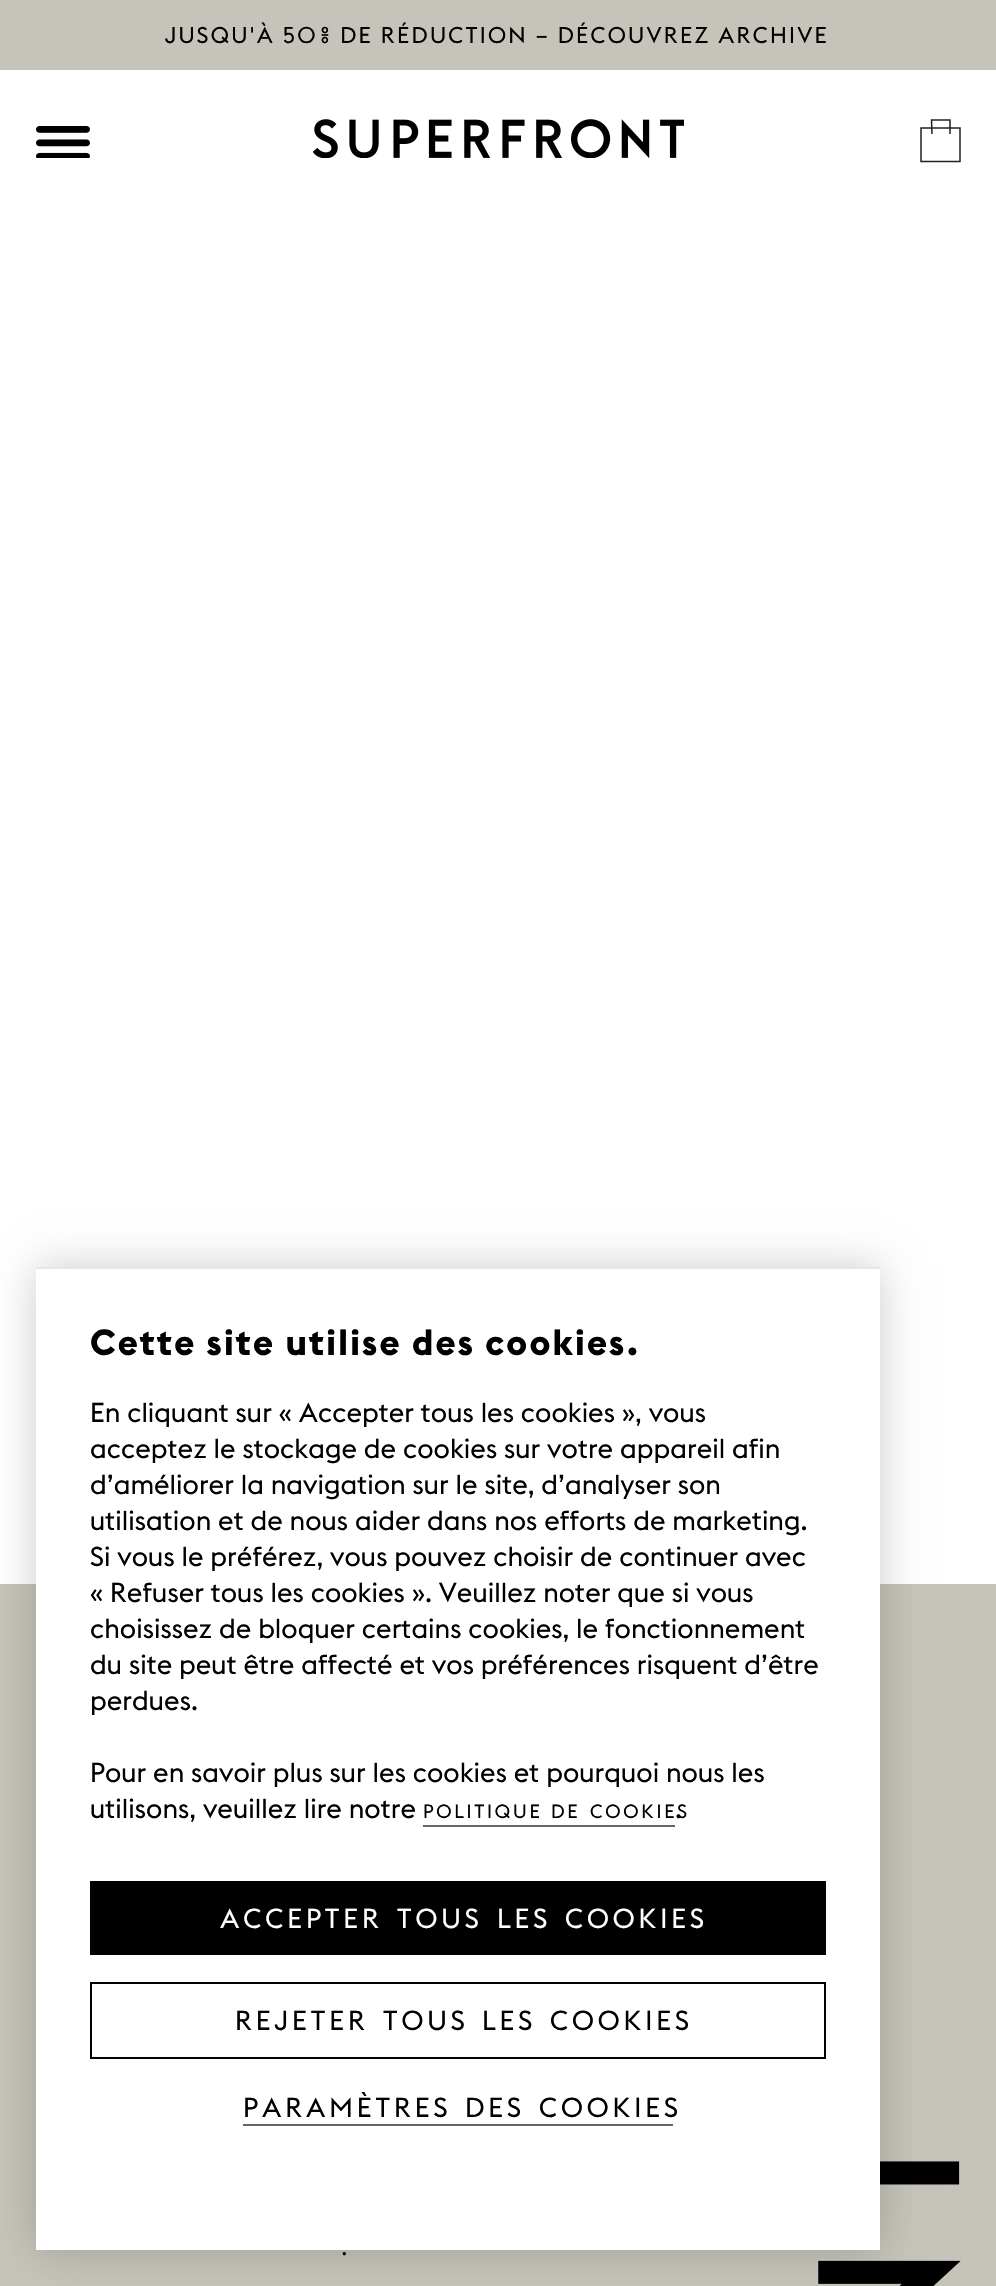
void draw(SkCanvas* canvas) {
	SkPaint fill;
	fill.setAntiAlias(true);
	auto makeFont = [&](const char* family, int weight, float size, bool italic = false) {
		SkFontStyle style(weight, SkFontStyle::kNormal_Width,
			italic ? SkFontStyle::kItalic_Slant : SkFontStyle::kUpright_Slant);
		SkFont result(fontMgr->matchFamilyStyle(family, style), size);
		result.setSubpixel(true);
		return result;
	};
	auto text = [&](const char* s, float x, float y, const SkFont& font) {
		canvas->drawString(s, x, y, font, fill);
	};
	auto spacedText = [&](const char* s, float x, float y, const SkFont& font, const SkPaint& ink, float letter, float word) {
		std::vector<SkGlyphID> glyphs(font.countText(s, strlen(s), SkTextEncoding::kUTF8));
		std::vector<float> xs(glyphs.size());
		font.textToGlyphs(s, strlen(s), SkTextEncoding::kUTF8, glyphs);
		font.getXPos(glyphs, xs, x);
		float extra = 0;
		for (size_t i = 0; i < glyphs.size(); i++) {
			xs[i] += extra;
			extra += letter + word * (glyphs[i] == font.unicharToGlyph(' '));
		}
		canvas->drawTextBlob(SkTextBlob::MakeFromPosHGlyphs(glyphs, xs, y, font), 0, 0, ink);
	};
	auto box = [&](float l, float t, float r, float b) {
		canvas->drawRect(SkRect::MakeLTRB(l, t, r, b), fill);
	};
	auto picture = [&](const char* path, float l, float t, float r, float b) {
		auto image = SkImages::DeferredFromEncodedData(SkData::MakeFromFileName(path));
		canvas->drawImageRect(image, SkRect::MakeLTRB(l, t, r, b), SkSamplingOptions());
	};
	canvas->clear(0xFFFFFFFF);
	fill.setColor(0xFFC6C4BA);
	box(0, 0, 996, 70);
	picture("image0.png", 36, 126, 90, 158);
	picture("image1.png", 313, 119, 684, 158);
	fill.setStyle(SkPaint::kStroke_Style);
	fill.setStrokeWidth(1.5f);
	fill.setColor(0xFF231F20);
	canvas->drawPath(SkPathBuilder().moveTo(921, 161.5f).lineTo(921, 128).lineTo(960, 128).lineTo(960, 161.5f).close().moveTo(950, 134).lineTo(950, 120).lineTo(931.5f, 120).lineTo(932, 134).detach(), fill);
	fill.setStyle(SkPaint::kFill_Style);
	fill.setColor(0xFFC6C4BA);
	box(0, 1584, 996, 2286);
	picture("image2.png", 818, 2161, 961, 2286);
	fill.setColor(0x33000000);
	fill.setMaskFilter(SkMaskFilter::MakeBlur(kNormal_SkBlurStyle, 20));
	canvas->drawRect(SkRect::MakeLTRB(36, 1267, 880, 2250), fill);
	fill.setMaskFilter(nullptr);
	fill.setColor(0xFFFFFFFF);
	box(36, 1269, 880, 2250);
	fill.setColor(0xFFE5E7EB);
	box(36, 1267, 880, 1269);
	fill.setColor(0xFF666666);
	box(423, 1825, 675, 1827);
	fill.setColor(0xFF000000);
	box(90, 1881, 826, 1955);
	fill.setStyle(SkPaint::kStroke_Style);
	fill.setStrokeWidth(2);
	canvas->drawRect(SkRect::MakeLTRB(91, 1983, 825, 2058), fill);
	fill.setStyle(SkPaint::kFill_Style);
	fill.setColor(0xFF666666);
	box(243, 2124, 673, 2126);
	auto font1 = makeFont("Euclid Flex", 400, 22.5f);
	fill.setColor(0xFF000000);
	spacedText("JUSQU'À 50 % DE RÉDUCTION – DÉCOUVREZ ARCHIVE", 165, 43, font1, fill, 2.25f, 0);
	auto font2 = makeFont("Euclid Flex", 700, 36);
	spacedText("Cette site utilise des cookies.", 90, 1355, font2, fill, 2.25f, 0);
	auto font3 = makeFont("Euclid Flex", 400, 27);
	text("En cliquant sur « Accepter tous les cookies », vous", 90, 1422, font3);
	text("acceptez le stockage de cookies sur votre appareil afin", 90, 1458, font3);
	text("d’améliorer la navigation sur le site, d’analyser son", 90, 1494, font3);
	text("utilisation et de nous aider dans nos efforts de marketing.", 90, 1530, font3);
	text("Si vous le préférez, vous pouvez choisir de continuer avec", 90, 1566, font3);
	text("« Refuser tous les cookies ». Veuillez noter que si vous", 90, 1602, font3);
	text("choisissez de bloquer certains cookies, le fonctionnement", 90, 1638, font3);
	text("du site peut être affecté et vos préférences risquent d’être", 90, 1674, font3);
	text("perdues.", 90, 1710, font3);
	text("Pour en savoir plus sur les cookies et pourquoi nous les", 90, 1782, font3);
	text("utilisons, veuillez lire notre", 90, 1818, font3);
	auto font4 = makeFont("Euclid Flex", 400, 19);
	spacedText("POLITIQUE", 423, 1818, font4, fill, 2.75f, 0);
	spacedText("DE", 551, 1818, font4, fill, 2.75f, 0);
	text(".", 675, 1818, font3);
	spacedText("COOKIES", 590, 1818, font4, fill, 2.75f, 0);
	auto font5 = makeFont("Euclid Flex", 400, 27.25f);
	fill.setColor(0xFFFFFFFF);
	spacedText("ACCEPTER", 220, 1928, font5, fill, 3.9f, 0);
	spacedText("TOUS", 397, 1928, font5, fill, 3.9f, 0);
	spacedText("LES", 497, 1928, font5, fill, 3.9f, 0);
	spacedText("COOKIES", 565, 1928, font5, fill, 3.9f, 0);
	fill.setColor(0xFF000000);
	spacedText("REJETER", 235, 2030, font5, fill, 3.9f, 0);
	spacedText("TOUS", 383, 2030, font5, fill, 3.9f, 0);
	spacedText("LES", 482, 2030, font5, fill, 3.9f, 0);
	spacedText("COOKIES", 550, 2030, font5, fill, 3.9f, 0);
	spacedText("PARAMÈTRES", 243, 2117, font5, fill, 3.9f, 0);
	spacedText("DES", 465, 2117, font5, fill, 3.9f, 0);
	spacedText("COOKIES", 539, 2117, font5, fill, 3.9f, 0);
	auto font6 = makeFont("Euclid Flex", 300, 27);
	spacedText(".", 341, 2255, font6, fill, 2, 0);
}
